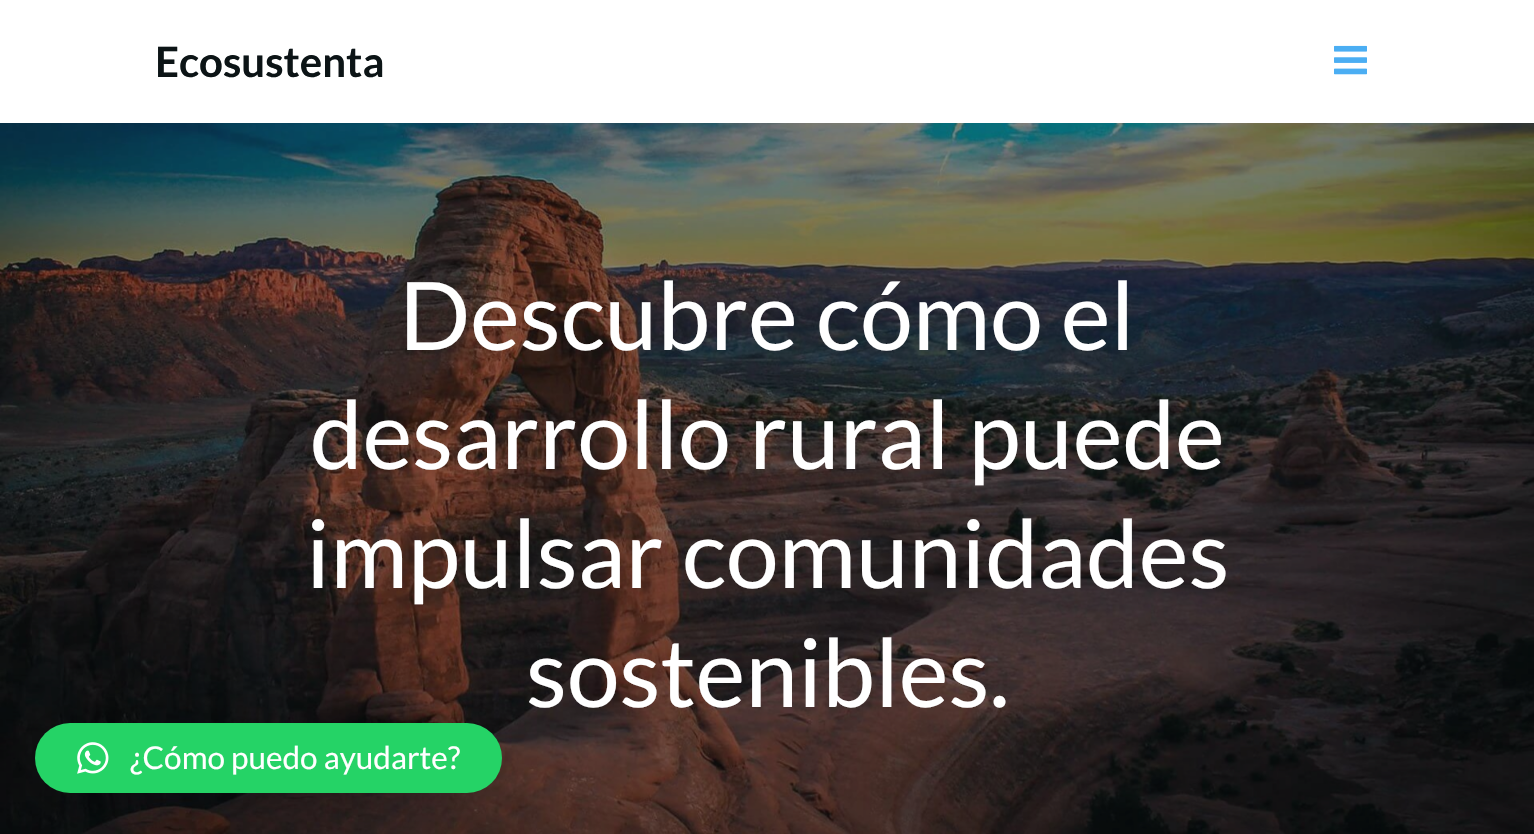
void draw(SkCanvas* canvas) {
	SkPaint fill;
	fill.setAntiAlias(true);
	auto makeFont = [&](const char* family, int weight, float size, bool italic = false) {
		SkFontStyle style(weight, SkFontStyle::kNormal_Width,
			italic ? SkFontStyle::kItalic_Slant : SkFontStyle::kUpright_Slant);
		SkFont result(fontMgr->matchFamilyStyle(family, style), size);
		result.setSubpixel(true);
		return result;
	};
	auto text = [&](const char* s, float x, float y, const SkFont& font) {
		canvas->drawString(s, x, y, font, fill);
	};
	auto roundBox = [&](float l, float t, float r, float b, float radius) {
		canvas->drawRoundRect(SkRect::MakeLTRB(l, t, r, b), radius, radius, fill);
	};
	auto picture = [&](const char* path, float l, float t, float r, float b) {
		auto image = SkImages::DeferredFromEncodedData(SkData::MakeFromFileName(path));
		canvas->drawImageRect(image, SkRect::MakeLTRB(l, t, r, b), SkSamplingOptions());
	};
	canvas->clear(0xFFFFFFFF);
	picture("image0.png", 1334, 45, 1367, 75);
	picture("image1.png", 0, 123, 1534, 834);
	fill.setColor(0x29000000);
	fill.setMaskFilter(SkMaskFilter::MakeBlur(kNormal_SkBlurStyle, 28));
	canvas->drawRoundRect(SkRect::MakeLTRB(35, 726, 502, 796), 35, 35, fill);
	fill.setMaskFilter(nullptr);
	fill.setColor(0xFF25D366);
	roundBox(35, 723, 502, 793, 35);
	picture("image2.png", 77, 742, 109, 774);
	auto font1 = makeFont("Lato", 700, 42);
	fill.setColor(0xFF0C1416);
	text("Ecosustenta", 155, 77, font1);
	auto font2 = makeFont("Lato", 400, 94.5f);
	fill.setColor(0xFFFFFFFF);
	text("Descubre cómo el", 399, 350, font2);
	text("desarrollo rural puede", 310, 469, font2);
	text("impulsar comunidades", 306, 588, font2);
	text("sostenibles.", 526, 707, font2);
	auto font3 = makeFont("Lato", 400, 31.5f);
	text("¿Cómo puedo ayudarte?", 130, 769, font3);
}
